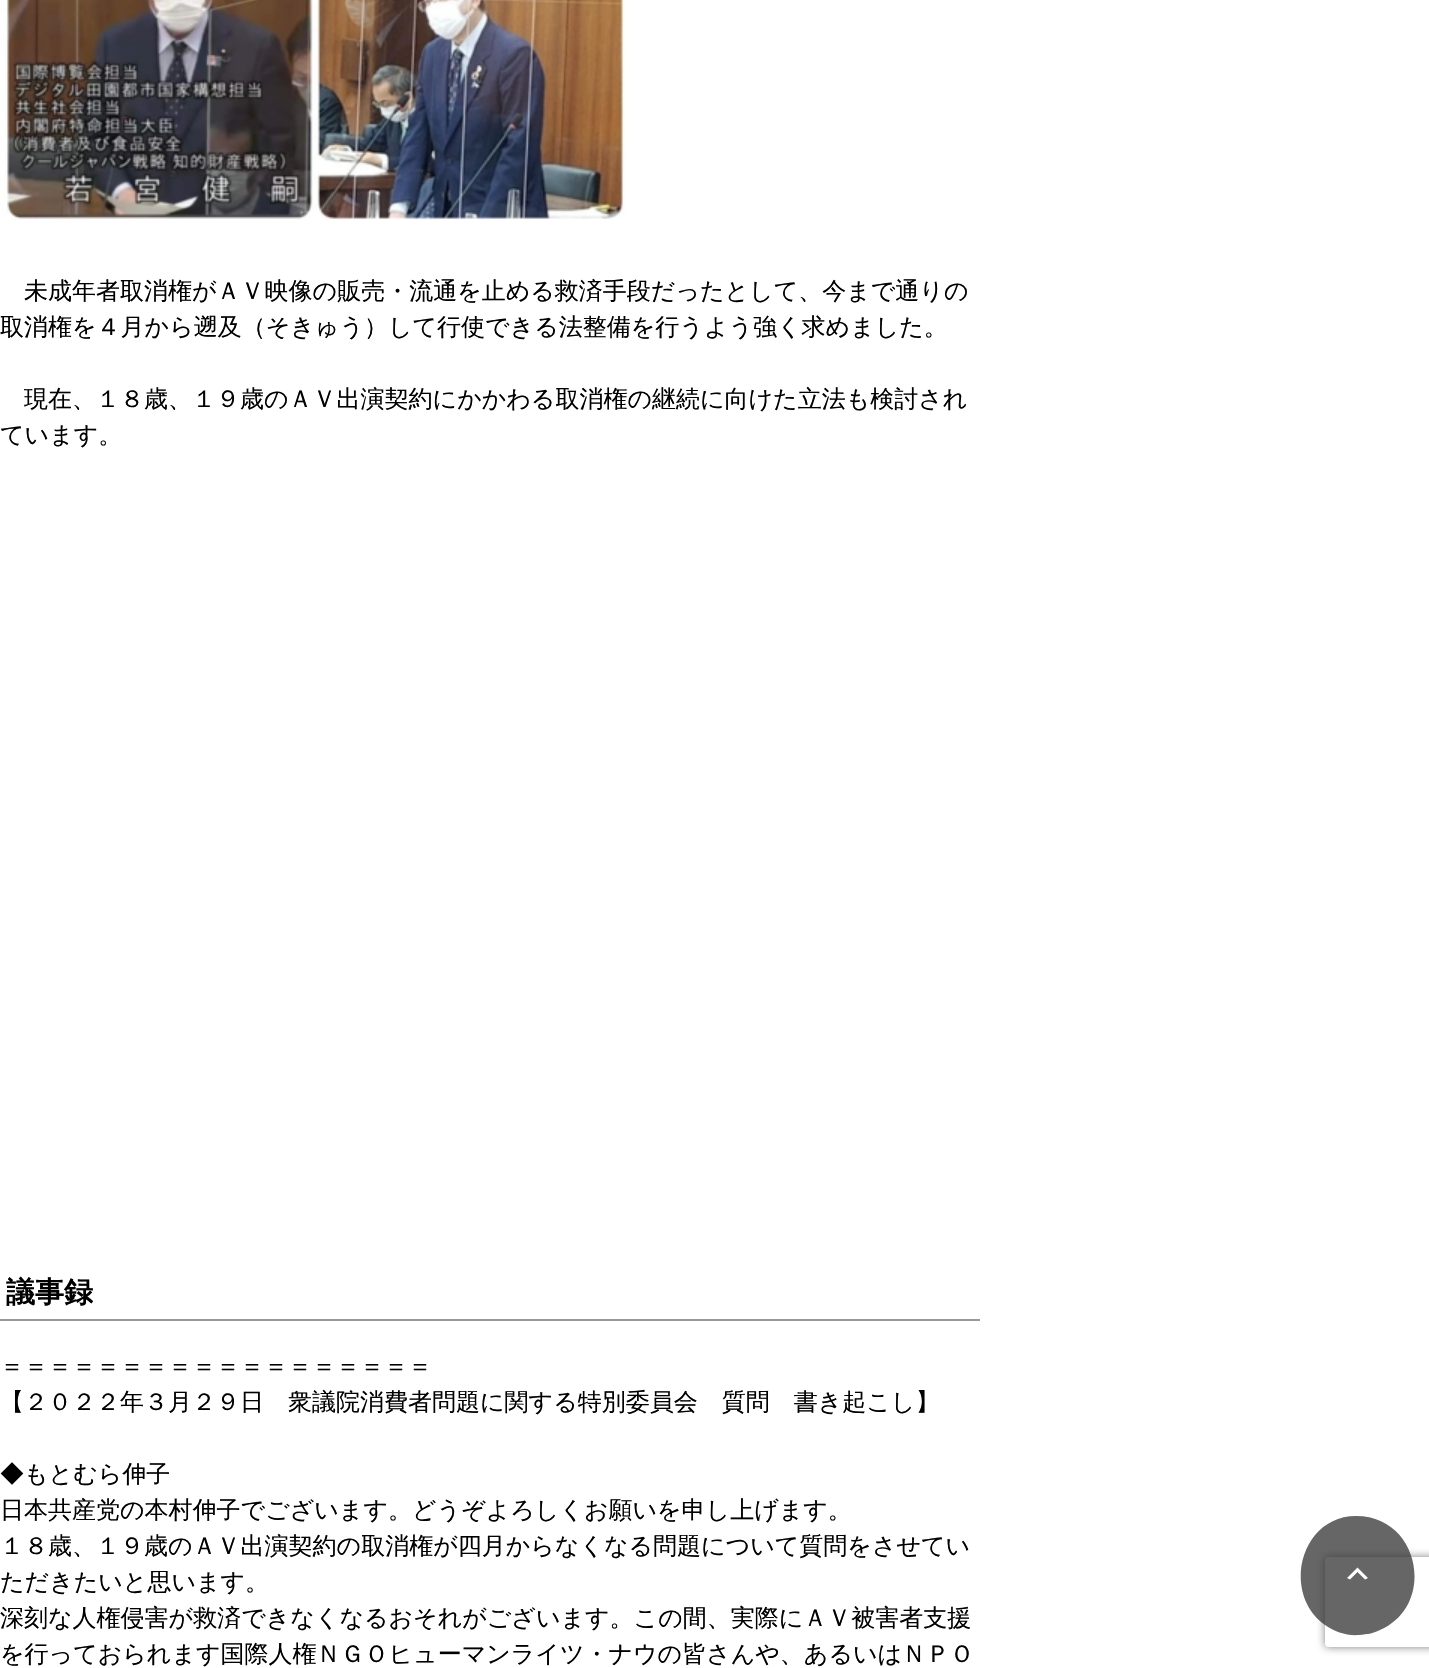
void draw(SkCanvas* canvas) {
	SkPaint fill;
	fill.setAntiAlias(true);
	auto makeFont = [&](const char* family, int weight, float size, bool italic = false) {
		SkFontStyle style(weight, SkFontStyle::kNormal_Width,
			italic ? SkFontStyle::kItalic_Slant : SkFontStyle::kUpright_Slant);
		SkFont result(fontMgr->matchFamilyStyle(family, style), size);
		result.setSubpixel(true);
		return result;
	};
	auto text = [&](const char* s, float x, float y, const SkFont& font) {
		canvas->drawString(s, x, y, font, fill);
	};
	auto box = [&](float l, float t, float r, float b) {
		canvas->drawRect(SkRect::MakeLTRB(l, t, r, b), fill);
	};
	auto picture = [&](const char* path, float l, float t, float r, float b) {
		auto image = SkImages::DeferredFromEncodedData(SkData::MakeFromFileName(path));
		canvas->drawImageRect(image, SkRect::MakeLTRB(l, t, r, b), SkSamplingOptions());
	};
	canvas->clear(0xFFFFFFFF);
	picture("image0.png", 0, 0, 626, 220);
	fill.setColor(0xFF999999);
	box(0, 1319, 980, 1321);
	canvas->save();
	canvas->clipPath(SkPathBuilder(SkPathFillType::kEvenOdd).moveTo(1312, 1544).lineTo(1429, 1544).lineTo(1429, 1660).lineTo(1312, 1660).close().moveTo(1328, 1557).lineTo(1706, 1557).cubicTo(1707.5f, 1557, 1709, 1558.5f, 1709, 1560).lineTo(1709, 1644).cubicTo(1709, 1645.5f, 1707.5f, 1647, 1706, 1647).lineTo(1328, 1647).cubicTo(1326.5f, 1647, 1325, 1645.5f, 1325, 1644).lineTo(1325, 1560).cubicTo(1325, 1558.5f, 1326.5f, 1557, 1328, 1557).close().detach(), true);
	fill.setColor(0xFF808080);
	fill.setMaskFilter(SkMaskFilter::MakeBlur(kNormal_SkBlurStyle, 4));
	canvas->drawRoundRect(SkRect::MakeLTRB(1325, 1557, 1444, 1647), 3, 3, fill);
	fill.setMaskFilter(nullptr);
	canvas->restore();
	fill.setColor(0xBF333333);
	canvas->drawPath(SkPathBuilder().moveTo(1356, 1516).cubicTo(1421, 1516, 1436, 1606, 1380, 1630).cubicTo(1372, 1634, 1368, 1634, 1359, 1635).cubicTo(1347, 1636, 1335, 1632, 1325, 1625).cubicTo(1281, 1594, 1300, 1516, 1356, 1516).close().detach(), fill);
	fill.setColor(0xFFFFFFFF);
	canvas->drawPath(SkPathBuilder().moveTo(1365, 1579.5f).lineTo(1357.5f, 1572).lineTo(1350, 1579.5f).lineTo(1347, 1578).lineTo(1357.5f, 1567.5f).lineTo(1368, 1578).close().detach(), fill);
	auto font1 = makeFont("WenQuanYi Zen Hei", 500, 24);
	fill.setColor(0xFF000000);
	text("未成年者取消権がＡＶ映像の販売・流通を止める救済手段だったとして、今まで通りの", 24, 299, font1);
	text("取消権を４月から遡及（そきゅう）して行使できる法整備を行うよう強く求めました。", 0, 335, font1);
	text("現在、１８歳、１９歳のＡＶ出演契約にかかわる取消権の継続に向けた立法も検討され", 24, 407, font1);
	text("ています。", 0, 443, font1);
	auto font2 = makeFont("WenQuanYi Zen Hei", 700, 29);
	text("議事録", 6, 1302, font2);
	text("＝＝＝＝＝＝＝＝＝＝＝＝＝＝＝＝＝＝", 0, 1374, font1);
	text("【２０２２年３月２９日　衆議院消費者問題に関する特別委員会　質問　書き起こし】", 0, 1410, font1);
	text("◆もとむら伸子", 0, 1482, font1);
	text("日本共産党の本村伸子でございます。どうぞよろしくお願いを申し上げます。", 0, 1518, font1);
	text("１８歳、１９歳のＡＶ出演契約の取消権が四月からなくなる問題について質問をさせてい", 0, 1554, font1);
	text("ただきたいと思います。", 0, 1590, font1);
	text("深刻な人権侵害が救済できなくなるおそれがございます。この間、実際にＡＶ被害者支援", 0, 1626, font1);
	text("を行っておられます国際人権ＮＧＯヒューマンライツ・ナウの皆さんや、あるいはＮＰＯ", 0, 1662, font1);
}
